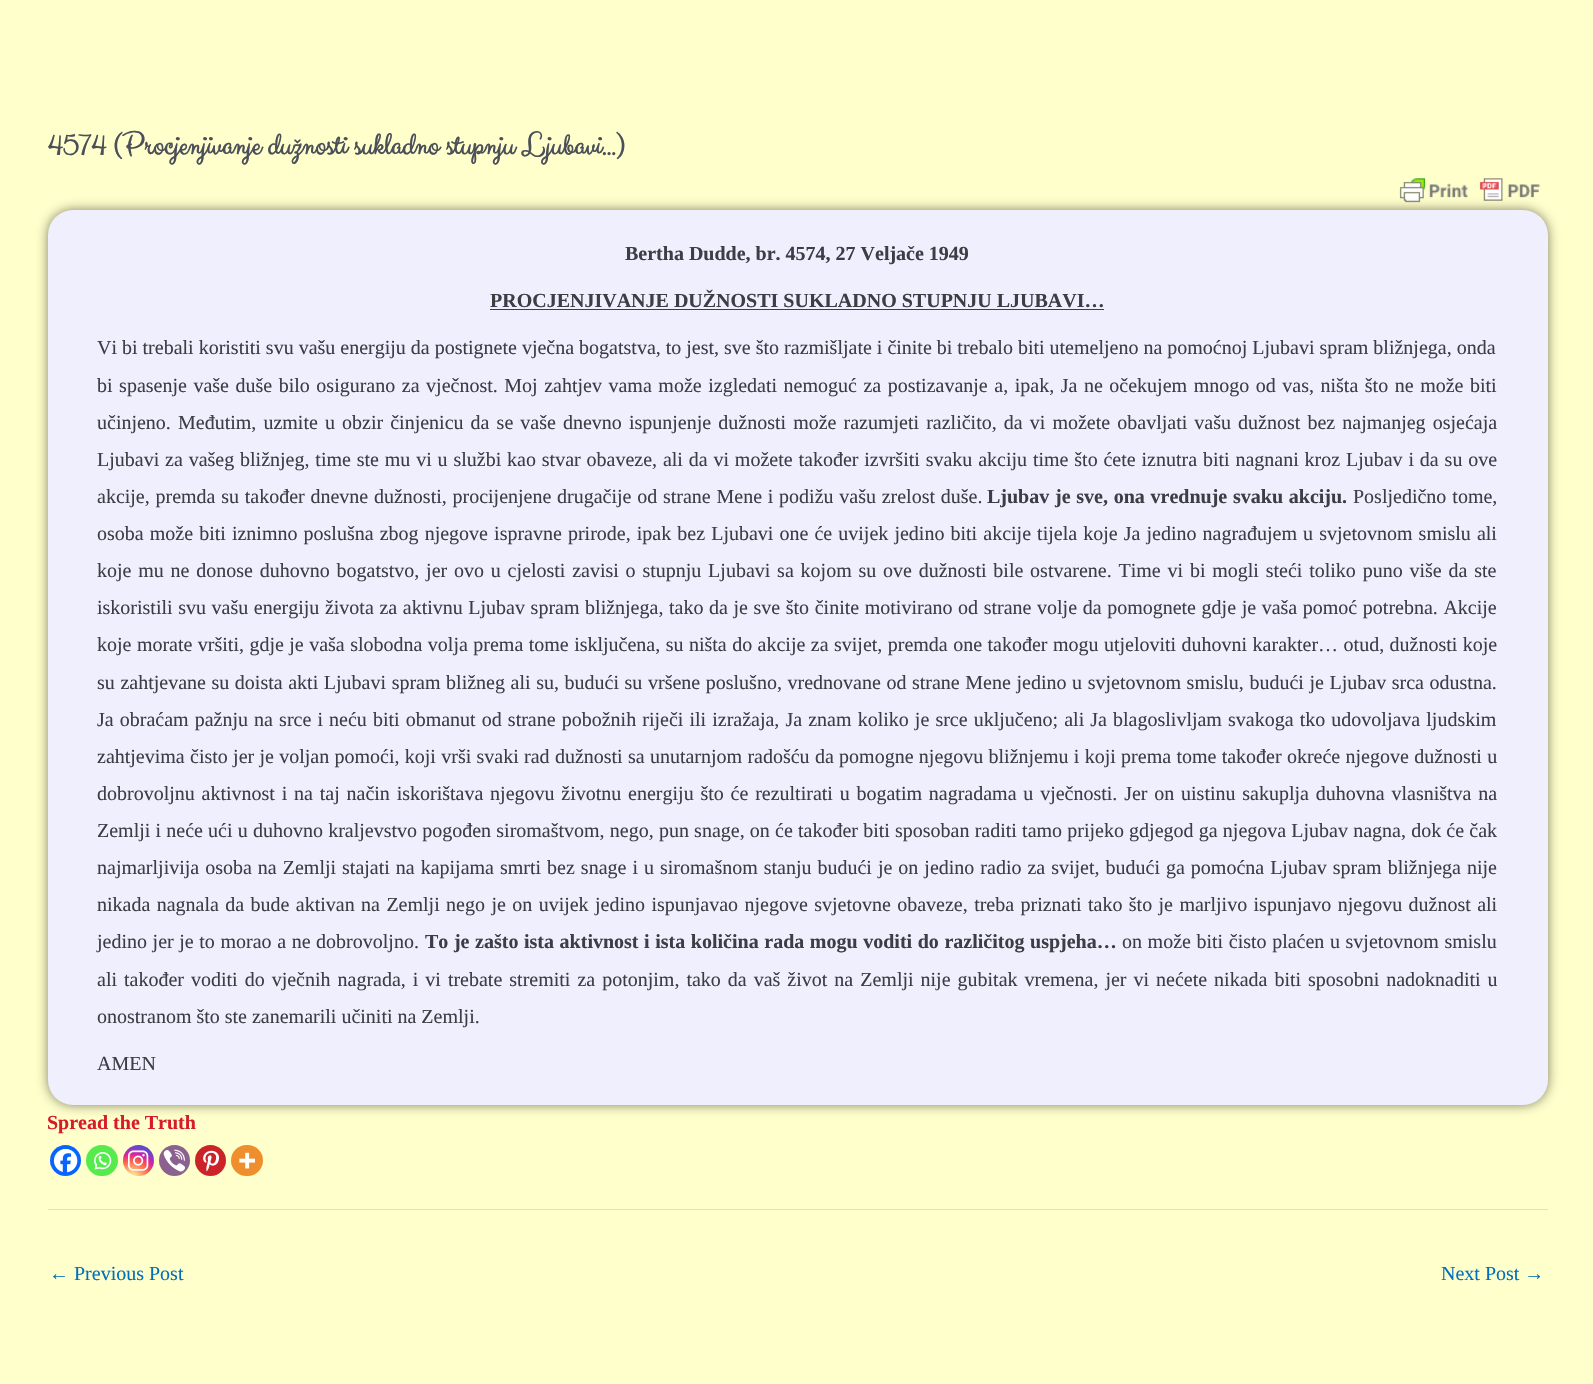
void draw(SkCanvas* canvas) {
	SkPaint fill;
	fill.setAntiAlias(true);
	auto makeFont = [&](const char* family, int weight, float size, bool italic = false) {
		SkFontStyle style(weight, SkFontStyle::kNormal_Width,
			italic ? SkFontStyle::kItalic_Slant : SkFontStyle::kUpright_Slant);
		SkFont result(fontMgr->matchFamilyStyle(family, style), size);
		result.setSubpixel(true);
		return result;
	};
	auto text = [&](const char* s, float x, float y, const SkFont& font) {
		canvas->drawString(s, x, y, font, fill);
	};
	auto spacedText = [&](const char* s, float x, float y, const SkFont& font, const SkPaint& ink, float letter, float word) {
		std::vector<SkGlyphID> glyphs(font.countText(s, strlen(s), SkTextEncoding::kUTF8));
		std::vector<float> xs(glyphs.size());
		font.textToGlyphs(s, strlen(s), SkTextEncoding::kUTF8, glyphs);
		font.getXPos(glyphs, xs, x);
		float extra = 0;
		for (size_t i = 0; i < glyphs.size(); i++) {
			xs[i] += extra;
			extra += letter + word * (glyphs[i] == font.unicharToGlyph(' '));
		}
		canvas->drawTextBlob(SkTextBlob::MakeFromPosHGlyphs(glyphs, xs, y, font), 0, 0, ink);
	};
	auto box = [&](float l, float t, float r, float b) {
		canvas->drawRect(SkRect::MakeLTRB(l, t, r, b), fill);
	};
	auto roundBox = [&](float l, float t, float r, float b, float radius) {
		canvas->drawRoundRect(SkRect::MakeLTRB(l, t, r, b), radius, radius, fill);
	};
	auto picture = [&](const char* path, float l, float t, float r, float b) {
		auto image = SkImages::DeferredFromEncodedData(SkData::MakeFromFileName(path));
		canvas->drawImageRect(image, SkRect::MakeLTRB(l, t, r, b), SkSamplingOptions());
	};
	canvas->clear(0xFFFFFFCC);
	picture("image0.png", 1399, 178, 1541, 203);
	fill.setColor(0x80000000);
	fill.setMaskFilter(SkMaskFilter::MakeBlur(kNormal_SkBlurStyle, 6));
	canvas->drawRoundRect(SkRect::MakeLTRB(48, 210, 1548, 1105), 25, 25, fill);
	fill.setMaskFilter(nullptr);
	fill.setColor(0xFFEFEFFE);
	roundBox(48, 210, 1548, 1105, 25);
	fill.setColor(0xFF3B3F44);
	box(490, 309, 1104, 310);
	fill.setColor(0xFF0765FE);
	canvas->drawCircle(65.5f, 1160.5f, 15.5f, fill);
	picture("image1.png", 53, 1148, 78, 1173);
	fill.setColor(0xFF55EB4C);
	roundBox(86, 1145, 118, 1176, 15.5f);
	picture("image2.png", 94, 1152, 112, 1170);
	{
		const SkColor colors[] = {0xFFFDF497, 0xFFFDF497, 0xFFFD5949, 0xFFD6249F, 0xFF285AEB};
		const float stops[] = {0, 0.05f, 0.45f, 0.6f, 0.9f};
		fill.setShader(SkGradientShader::MakeRadial({132, 1178}, 40, colors, stops, 5, SkTileMode::kClamp));
		fill.setAlpha(255);
	}
	canvas->drawCircle(138.5f, 1160.5f, 15.5f, fill);
	picture("image3.png", 128, 1150, 149, 1171);
	fill.setShader(nullptr);
	fill.setColor(0xFF8B628F);
	canvas->drawCircle(174.5f, 1160.5f, 15.5f, fill);
	picture("image4.png", 163, 1149, 186, 1172);
	fill.setColor(0xFFCC2329);
	canvas->drawCircle(210.5f, 1160.5f, 15.5f, fill);
	picture("image5.png", 203, 1150, 219, 1172);
	fill.setColor(0xFFEE8E2D);
	roundBox(231, 1145, 263, 1176, 15.5f);
	picture("image6.png", 239, 1152, 255, 1169);
	fill.setColor(0xFFDDDDDD);
	box(48, 1209, 1548, 1210);
	auto font1 = makeFont("Clicker Script", 700, 31.25f);
	fill.setColor(0xFF4B4F58);
	text("4574 (Procjenjivanje dužnosti sukladno stupnju Ljubavi…)", 47, 155, font1);
	auto font2 = makeFont("Liberation Serif", 700, 20);
	fill.setColor(0xFF3B3F44);
	text("Bertha Dudde, br. 4574, 27 Veljače 1949", 625, 260, font2);
	text("PROCJENJIVANJE DUŽNOSTI SUKLADNO STUPNJU LJUBAVI…", 490, 307, font2);
	auto font3 = makeFont("Liberation Serif", 400, 20);
	text("Vi bi trebali koristiti svu vašu energiju da postignete vječna bogatstva, to jest, sve što razmišljate i činite bi trebalo biti utemeljeno na pomoćnoj Ljubavi spram bližnjega, onda", 97, 354, font3);
	spacedText("bi spasenje vaše duše bilo osigurano za vječnost. Moj zahtjev vama može izgledati nemoguć za postizavanje a, ipak, Ja ne očekujem mnogo od vas, ništa što ne može biti", 97, 392, font3, fill, 0, 1.55f);
	spacedText("učinjeno. Međutim, uzmite u obzir činjenicu da se vaše dnevno ispunjenje dužnosti može razumjeti različito, da vi možete obavljati vašu dužnost bez najmanjeg osjećaja", 97, 429, font3, fill, 0, 2.1f);
	spacedText("Ljubavi za vašeg bližnjeg, time ste mu vi u službi kao stvar obaveze, ali da vi možete također izvršiti svaku akciju time što ćete iznutra biti nagnani kroz Ljubav i da su ove", 97, 466, font3, fill, 0, 0.85f);
	spacedText("akcije, premda su također dnevne dužnosti, procijenjene drugačije od strane Mene i podižu vašu zrelost duše.", 97, 503, font3, fill, 0, 0.75f);
	spacedText("Ljubav je sve, ona vrednuje svaku akciju.", 987, 503, font2, fill, 0, 0.75f);
	spacedText("Posljedično tome,", 1353, 503, font3, fill, 0, 1);
	spacedText("osoba može biti iznimno poslušna zbog njegove ispravne prirode, ipak bez Ljubavi one će uvijek jedino biti akcije tijela koje Ja jedino nagrađujem u svjetovnom smislu ali", 97, 540, font3, fill, 0, 1.1f);
	spacedText("koje mu ne donose duhovno bogatstvo, jer ovo u cjelosti zavisi o stupnju Ljubavi sa kojom su ove dužnosti bile ostvarene. Time vi bi mogli steći toliko puno više da ste", 97, 577, font3, fill, 0, 1.8f);
	spacedText("iskoristili svu vašu energiju života za aktivnu Ljubav spram bližnjega, tako da je sve što činite motivirano od strane volje da pomognete gdje je vaša pomoć potrebna. Akcije", 97, 614, font3, fill, 0, 0.6f);
	spacedText("koje morate vršiti, gdje je vaša slobodna volja prema tome isključena, su ništa do akcije za svijet, premda one također mogu utjeloviti duhovni karakter… otud, dužnosti koje", 97, 651, font3, fill, 0, 0.45f);
	spacedText("su zahtjevane su doista akti Ljubavi spram bližneg ali su, budući su vršene poslušno, vrednovane od strane Mene jedino u svjetovnom smislu, budući je Ljubav srca odustna.", 97, 689, font3, fill, 0, 0.6f);
	spacedText("Ja obraćam pažnju na srce i neću biti obmanut od strane pobožnih riječi ili izražaja, Ja znam koliko je srce uključeno; ali Ja blagoslivljam svakoga tko udovoljava ljudskim", 97, 726, font3, fill, 0, 1.1f);
	spacedText("zahtjevima čisto jer je voljan pomoći, koji vrši svaki rad dužnosti sa unutarnjom radošću da pomogne njegovu bližnjemu i koji prema tome također okreće njegove dužnosti u", 97, 763, font3, fill, 0, 0.3f);
	spacedText("dobrovoljnu aktivnost i na taj način iskorištava njegovu životnu energiju što će rezultirati u bogatim nagradama u vječnosti. Jer on uistinu sakuplja duhovna vlasništva na", 97, 800, font3, fill, 0, 1.8f);
	spacedText("Zemlji i neće ući u duhovno kraljevstvo pogođen siromaštvom, nego, pun snage, on će također biti sposoban raditi tamo prijeko gdjegod ga njegova Ljubav nagna, dok će čak", 97, 837, font3, fill, 0, 0.2f);
	spacedText("najmarljivija osoba na Zemlji stajati na kapijama smrti bez snage i u siromašnom stanju budući je on jedino radio za svijet, budući ga pomoćna Ljubav spram bližnjega nije", 97, 874, font3, fill, 0, 1);
	spacedText("nikada nagnala da bude aktivan na Zemlji nego je on uvijek jedino ispunjavao njegove svjetovne obaveze, treba priznati tako što je marljivo ispunjavo njegovu dužnost ali", 97, 911, font3, fill, 0, 1.4f);
	spacedText("jedino jer je to morao a ne dobrovoljno.", 97, 948, font3, fill, 0, 0.6f);
	spacedText("To je zašto ista aktivnost i ista količina rada mogu voditi do različitog uspjeha…", 425, 948, font2, fill, 0, 0.6f);
	spacedText("on može biti čisto plaćen u svjetovnom smislu", 1122, 948, font3, fill, 0, 0.6f);
	spacedText("ali također voditi do vječnih nagrada, i vi trebate stremiti za potonjim, tako da vaš život na Zemlji nije gubitak vremena, jer vi nećete nikada biti sposobni nadoknaditi u", 97, 986, font3, fill, 0, 2);
	text("onostranom što ste zanemarili učiniti na Zemlji.", 97, 1023, font3);
	text("AMEN", 97, 1070, font3);
	fill.setColor(0xFFD61B2B);
	text("Spread the Truth", 47, 1129, font2);
	fill.setColor(0xFF0170B9);
	text("← Previous Post", 49, 1280, font3);
	text("Next Post →", 1441, 1280, font3);
}
